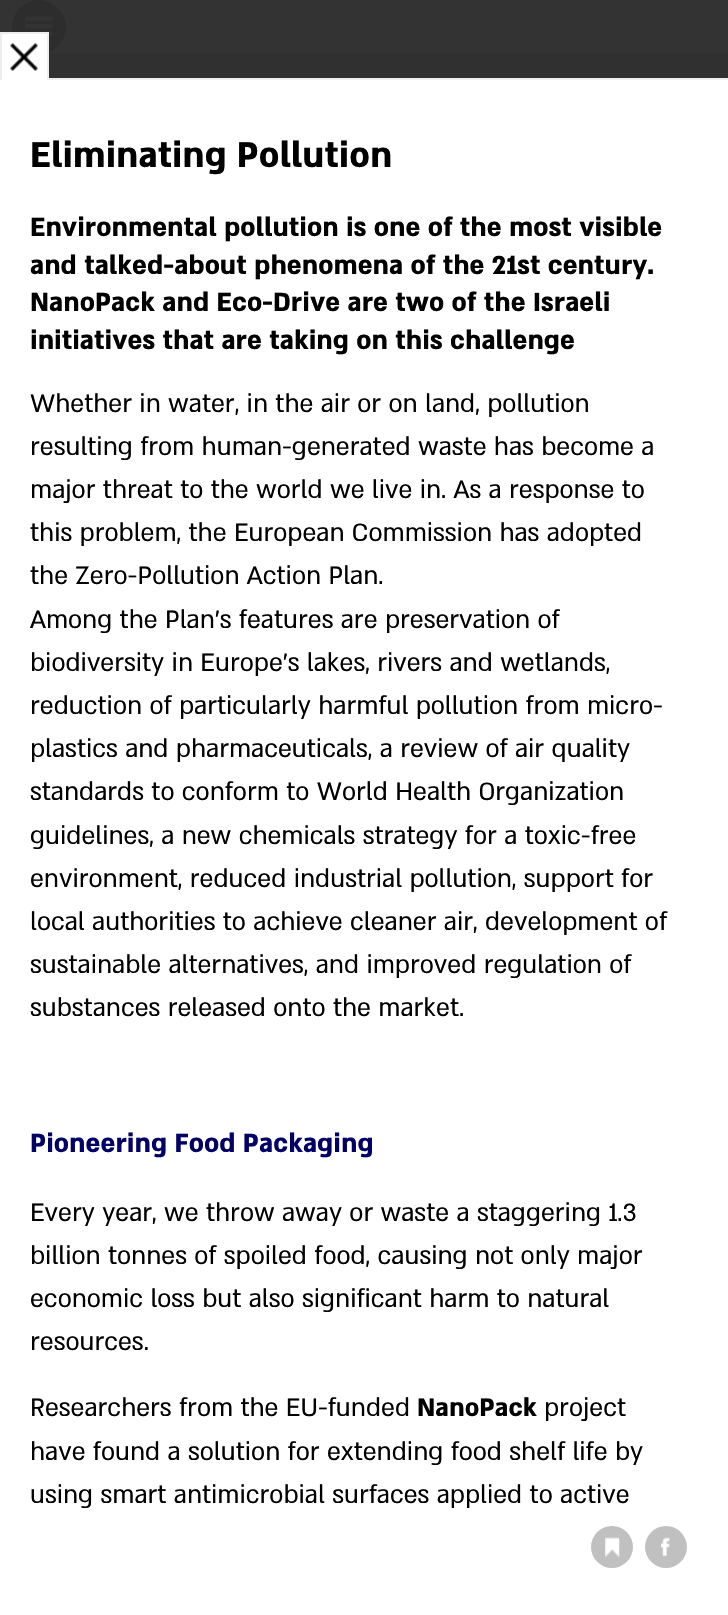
void draw(SkCanvas* canvas) {
	SkPaint fill;
	fill.setAntiAlias(true);
	auto makeFont = [&](const char* family, int weight, float size, bool italic = false) {
		SkFontStyle style(weight, SkFontStyle::kNormal_Width,
			italic ? SkFontStyle::kItalic_Slant : SkFontStyle::kUpright_Slant);
		SkFont result(fontMgr->matchFamilyStyle(family, style), size);
		result.setSubpixel(true);
		return result;
	};
	auto text = [&](const char* s, float x, float y, const SkFont& font) {
		canvas->drawString(s, x, y, font, fill);
	};
	auto box = [&](float l, float t, float r, float b) {
		canvas->drawRect(SkRect::MakeLTRB(l, t, r, b), fill);
	};
	auto picture = [&](const char* path, float l, float t, float r, float b) {
		auto image = SkImages::DeferredFromEncodedData(SkData::MakeFromFileName(path));
		canvas->drawImageRect(image, SkRect::MakeLTRB(l, t, r, b), SkSamplingOptions());
	};
	canvas->clear(0xFFFFFFFF);
	fill.setColor(0xFFDDDDDD);
	canvas->drawCircle(39, 27, 27, fill);
	picture("image0.png", 25, 16, 53, 37);
	fill.setColor(0xFFEEEEEE);
	box(49, 54, 728, 78);
	fill.setStyle(SkPaint::kStroke_Style);
	fill.setStrokeWidth(808);
	fill.setColor(0xCC000000);
	canvas->drawRect(SkRect::MakeLTRB(-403, -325, 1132, 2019), fill);
	fill.setStyle(SkPaint::kFill_Style);
	fill.setColor(0xFFFFFFFF);
	box(0, 80, 1, 1615);
	fill.setColor(0xFFEEEEEE);
	box(49, 78, 728, 80);
	fill.setColor(0xFFFFFFFF);
	box(2, 34, 47, 79);
	picture("image1.png", 10, 43, 38, 71);
	fill.setColor(0xFFEEEEEE);
	box(0, 32, 48, 34);
	box(47, 32, 49, 80);
	box(0, 32, 2, 80);
	fill.setColor(0xFFC0C0C0);
	canvas->drawCircle(612, 1547, 21, fill);
	picture("image2.png", 605, 1537, 620, 1558);
	canvas->drawCircle(666, 1547, 21, fill);
	picture("image3.png", 661, 1537, 670, 1557);
	auto font1 = makeFont("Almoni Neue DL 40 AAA", 700, 40.75f);
	fill.setColor(0xFF000000);
	text("Eliminating Pollution", 30, 167, font1);
	auto font2 = makeFont("Almoni Neue DL 40 AAA", 700, 30);
	text("Environmental pollution is one of the most visible", 30, 236, font2);
	text("and talked-about phenomena of the 21st century.", 30, 274, font2);
	text("NanoPack and Eco-Drive are two of the Israeli", 30, 311, font2);
	text("initiatives that are taking on this challenge", 30, 349, font2);
	auto font3 = makeFont("Almoni Neue DL 40 AAA", 400, 28.8f);
	text("Whether in water, in the air or on land, pollution", 30, 412, font3);
	text("resulting from human-generated waste has become a", 30, 455, font3);
	text("major threat to the world we live in. As a response to", 30, 498, font3);
	text("this problem, the European Commission has adopted", 30, 541, font3);
	text("the Zero-Pollution Action Plan.", 30, 584, font3);
	text("Among the Plan's features are preservation of", 30, 628, font3);
	text("biodiversity in Europe's lakes, rivers and wetlands,", 30, 671, font3);
	text("reduction of particularly harmful pollution from micro-", 30, 714, font3);
	text("plastics and pharmaceuticals, a review of air quality", 30, 757, font3);
	text("standards to conform to World Health Organization", 30, 800, font3);
	text("guidelines, a new chemicals strategy for a toxic-free", 30, 844, font3);
	text("environment, reduced industrial pollution, support for", 30, 887, font3);
	text("local authorities to achieve cleaner air, development of", 30, 930, font3);
	text("sustainable alternatives, and improved regulation of", 30, 973, font3);
	text("substances released onto the market.", 30, 1016, font3);
	fill.setColor(0xFF000066);
	text("Pioneering Food Packaging", 30, 1152, font2);
	fill.setColor(0xFF000000);
	text("Every year, we throw away or waste a staggering 1.3", 30, 1221, font3);
	text("billion tonnes of spoiled food, causing not only major", 30, 1264, font3);
	text("economic loss but also significant harm to natural", 30, 1307, font3);
	text("resources.", 30, 1350, font3);
	text("Researchers from the EU-funded", 30, 1416, font3);
	auto font4 = makeFont("Almoni Neue DL 40 AAA", 700, 28.8f);
	text("NanoPack", 417, 1416, font4);
	text("project", 544, 1416, font3);
	text("have found a solution for extending food shelf life by", 30, 1460, font3);
	text("using smart antimicrobial surfaces applied to active", 30, 1503, font3);
}
